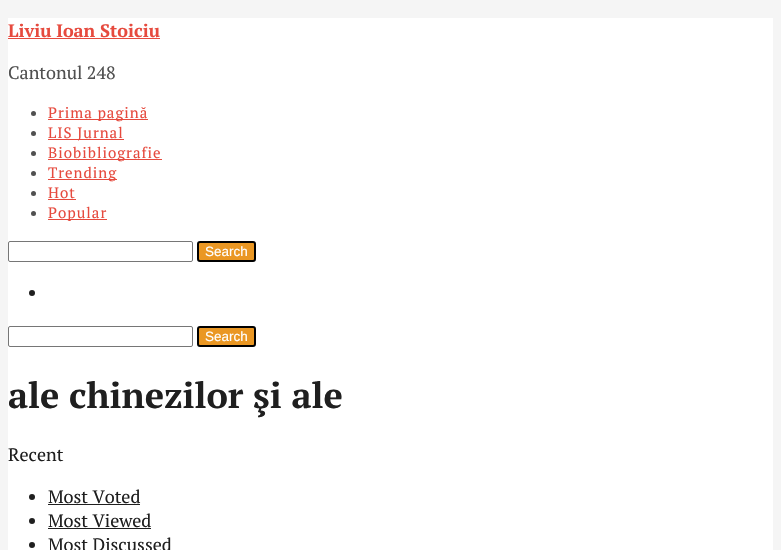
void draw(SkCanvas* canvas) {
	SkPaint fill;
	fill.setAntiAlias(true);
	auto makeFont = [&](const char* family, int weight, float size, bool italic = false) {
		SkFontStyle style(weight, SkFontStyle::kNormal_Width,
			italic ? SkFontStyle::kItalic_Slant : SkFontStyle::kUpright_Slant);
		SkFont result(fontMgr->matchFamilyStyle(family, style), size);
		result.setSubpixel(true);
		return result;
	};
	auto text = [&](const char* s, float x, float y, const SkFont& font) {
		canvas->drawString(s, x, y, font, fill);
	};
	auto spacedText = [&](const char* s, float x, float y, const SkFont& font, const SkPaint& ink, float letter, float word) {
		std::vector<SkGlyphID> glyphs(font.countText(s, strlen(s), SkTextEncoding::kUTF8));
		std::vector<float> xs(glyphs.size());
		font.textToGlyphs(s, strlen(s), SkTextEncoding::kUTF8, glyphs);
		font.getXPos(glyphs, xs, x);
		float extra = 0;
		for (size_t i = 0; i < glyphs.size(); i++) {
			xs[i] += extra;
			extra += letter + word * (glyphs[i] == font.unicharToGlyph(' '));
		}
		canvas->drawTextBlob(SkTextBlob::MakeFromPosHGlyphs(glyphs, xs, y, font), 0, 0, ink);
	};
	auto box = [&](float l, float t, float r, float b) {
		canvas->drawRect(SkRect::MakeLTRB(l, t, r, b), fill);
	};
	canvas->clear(0xFFF5F5F5);
	fill.setColor(0xFFFFFFFF);
	box(8, 18, 773, 550);
	fill.setColor(0xFFE64A3E);
	box(8, 38, 160, 39);
	fill.setColor(0xFF505050);
	canvas->drawCircle(33.5f, 113.5f, 2.5f, fill);
	fill.setColor(0xFFE64A3E);
	box(48, 119, 148, 120);
	fill.setColor(0xFF505050);
	canvas->drawCircle(33.5f, 133.5f, 2.5f, fill);
	fill.setColor(0xFFE64A3E);
	box(48, 139, 124, 140);
	fill.setColor(0xFF505050);
	canvas->drawCircle(33.5f, 153.5f, 2.5f, fill);
	fill.setColor(0xFFE64A3E);
	box(48, 159, 162, 160);
	fill.setColor(0xFF505050);
	canvas->drawCircle(33.5f, 173.5f, 2.5f, fill);
	fill.setColor(0xFFE64A3E);
	box(48, 179, 117, 180);
	fill.setColor(0xFF505050);
	canvas->drawCircle(33.5f, 193.5f, 2.5f, fill);
	fill.setColor(0xFFE64A3E);
	box(48, 199, 76, 200);
	fill.setColor(0xFF505050);
	canvas->drawCircle(33.5f, 213.5f, 2.5f, fill);
	fill.setColor(0xFFE64A3E);
	box(48, 219, 107, 220);
	fill.setStyle(SkPaint::kStroke_Style);
	fill.setStrokeWidth(1);
	fill.setColor(0xFF767676);
	canvas->drawRoundRect(SkRect::MakeLTRB(8.5f, 241.5f, 192.5f, 261.5f), 1.5f, 1.5f, fill);
	fill.setStyle(SkPaint::kFill_Style);
	fill.setColor(0xFFEA9723);
	canvas->drawRoundRect(SkRect::MakeLTRB(198, 242, 255, 261), 2, 2, fill);
	fill.setStyle(SkPaint::kStroke_Style);
	fill.setStrokeWidth(2);
	fill.setColor(0xFF000000);
	canvas->drawRoundRect(SkRect::MakeLTRB(198, 242, 255, 261), 2, 2, fill);
	fill.setStyle(SkPaint::kFill_Style);
	fill.setColor(0xFF1F1F1F);
	canvas->drawCircle(32, 293, 3, fill);
	fill.setStyle(SkPaint::kStroke_Style);
	fill.setStrokeWidth(1);
	fill.setColor(0xFF767676);
	canvas->drawRoundRect(SkRect::MakeLTRB(8.5f, 326.5f, 192.5f, 346.5f), 1.5f, 1.5f, fill);
	fill.setStyle(SkPaint::kFill_Style);
	fill.setColor(0xFFEA9723);
	canvas->drawRoundRect(SkRect::MakeLTRB(198, 327, 255, 346), 2, 2, fill);
	fill.setStyle(SkPaint::kStroke_Style);
	fill.setStrokeWidth(2);
	fill.setColor(0xFF000000);
	canvas->drawRoundRect(SkRect::MakeLTRB(198, 327, 255, 346), 2, 2, fill);
	fill.setStyle(SkPaint::kFill_Style);
	fill.setColor(0xFF1F1F1F);
	canvas->drawCircle(32, 497, 3, fill);
	box(48, 504, 140, 505);
	canvas->drawCircle(32, 521, 3, fill);
	box(48, 528, 151, 529);
	canvas->drawCircle(32, 545, 3, fill);
	auto font1 = makeFont("PT Serif", 700, 18);
	fill.setColor(0xFFE64A3E);
	text("Liviu Ioan Stoiciu", 8, 37, font1);
	auto font2 = makeFont("PT Serif", 400, 18);
	fill.setColor(0xFF505050);
	text("Cantonul 248", 8, 79, font2);
	auto font3 = makeFont("PT Serif", 400, 15);
	fill.setColor(0xFFE64A3E);
	spacedText("Prima pagină", 48, 118, font3, fill, 1, 0);
	spacedText("LIS Jurnal", 48, 138, font3, fill, 1, 0);
	spacedText("Biobibliografie", 48, 158, font3, fill, 1, 0);
	spacedText("Trending", 48, 178, font3, fill, 1, 0);
	spacedText("Hot", 48, 198, font3, fill, 1, 0);
	spacedText("Popular", 48, 218, font3, fill, 1, 0);
	auto font4 = makeFont("Liberation Sans", 400, 13.5f);
	fill.setColor(0xFFFFFFFF);
	text("Search", 205, 256, font4);
	text("Search", 205, 341, font4);
	auto font5 = makeFont("PT Serif", 700, 36);
	fill.setColor(0xFF1F1F1F);
	text("ale chinezilor şi ale", 8, 408, font5);
	text("Recent", 8, 461, font2);
	text("Most Voted", 48, 503, font2);
	text("Most Viewed", 48, 527, font2);
	text("Most Discussed", 48, 551, font2);
}
